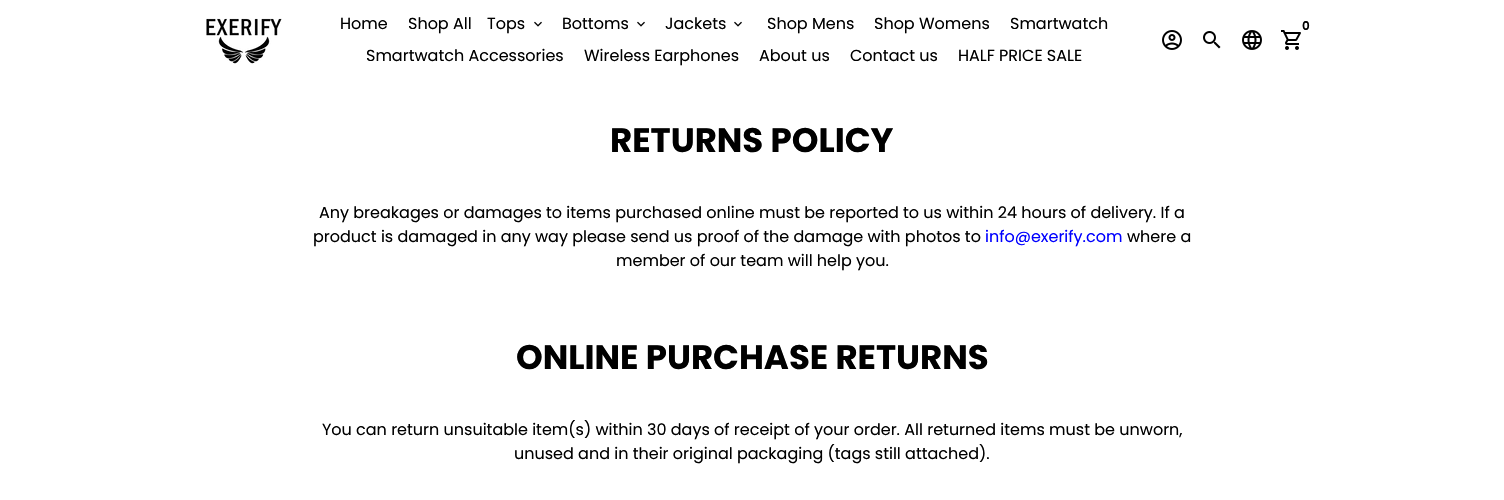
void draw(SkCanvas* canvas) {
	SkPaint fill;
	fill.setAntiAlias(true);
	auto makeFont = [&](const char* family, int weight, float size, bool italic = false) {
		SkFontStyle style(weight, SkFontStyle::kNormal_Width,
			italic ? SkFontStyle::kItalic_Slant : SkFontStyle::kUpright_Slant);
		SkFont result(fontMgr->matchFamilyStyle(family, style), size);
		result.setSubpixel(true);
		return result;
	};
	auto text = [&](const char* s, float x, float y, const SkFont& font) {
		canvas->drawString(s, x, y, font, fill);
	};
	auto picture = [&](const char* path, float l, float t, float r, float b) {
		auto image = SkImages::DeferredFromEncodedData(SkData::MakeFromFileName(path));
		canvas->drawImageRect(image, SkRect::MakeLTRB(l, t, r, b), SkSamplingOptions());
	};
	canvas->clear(0xFFFFFFFF);
	picture("image0.png", 206, 18, 282, 64);
	picture("image1.png", 534, 21, 542, 27);
	picture("image1.png", 637, 21, 645, 27);
	picture("image1.png", 734, 21, 742, 27);
	picture("image2.png", 1281, 30, 1301, 50);
	picture("image3.png", 1162, 30, 1182, 50);
	picture("image4.png", 1203, 31, 1221, 49);
	picture("image5.png", 1242, 30, 1262, 50);
	auto font1 = makeFont("Poppins", 400, 16);
	fill.setColor(0xFF000000);
	text("Home", 340, 29, font1);
	text("Shop All", 408, 29, font1);
	text("Tops", 487, 29, font1);
	text("Bottoms", 562, 29, font1);
	text("Jackets", 665, 29, font1);
	text("Shop Mens", 767, 29, font1);
	text("Shop Womens", 874, 29, font1);
	text("Smartwatch", 1010, 29, font1);
	text("Smartwatch Accessories", 366, 61, font1);
	text("Wireless Earphones", 584, 61, font1);
	text("About us", 759, 61, font1);
	text("Contact us", 850, 61, font1);
	text("HALF PRICE SALE", 958, 61, font1);
	auto font2 = makeFont("Poppins", 600, 12);
	text("0", 1302, 30, font2);
	auto font3 = makeFont("Poppins", 700, 34);
	text("RETURNS POLICY", 610, 152, font3);
	text("Any breakages or damages to items purchased online must be reported to us within 24 hours of delivery. If a", 319, 218, font1);
	text("product is damaged in any way please send us proof of the damage with photos to", 313, 242, font1);
	fill.setColor(0xFF0000FF);
	text("info@exerify.com", 985, 242, font1);
	fill.setColor(0xFF000000);
	text("where a", 1127, 242, font1);
	text("member of our team will help you.", 616, 266, font1);
	text("ONLINE PURCHASE RETURNS", 516, 369, font3);
	text("You can return unsuitable item(s) within 30 days of receipt of your order. All returned items must be unworn,", 322, 435, font1);
	text("unused and in their original packaging (tags still attached).", 514, 459, font1);
}
